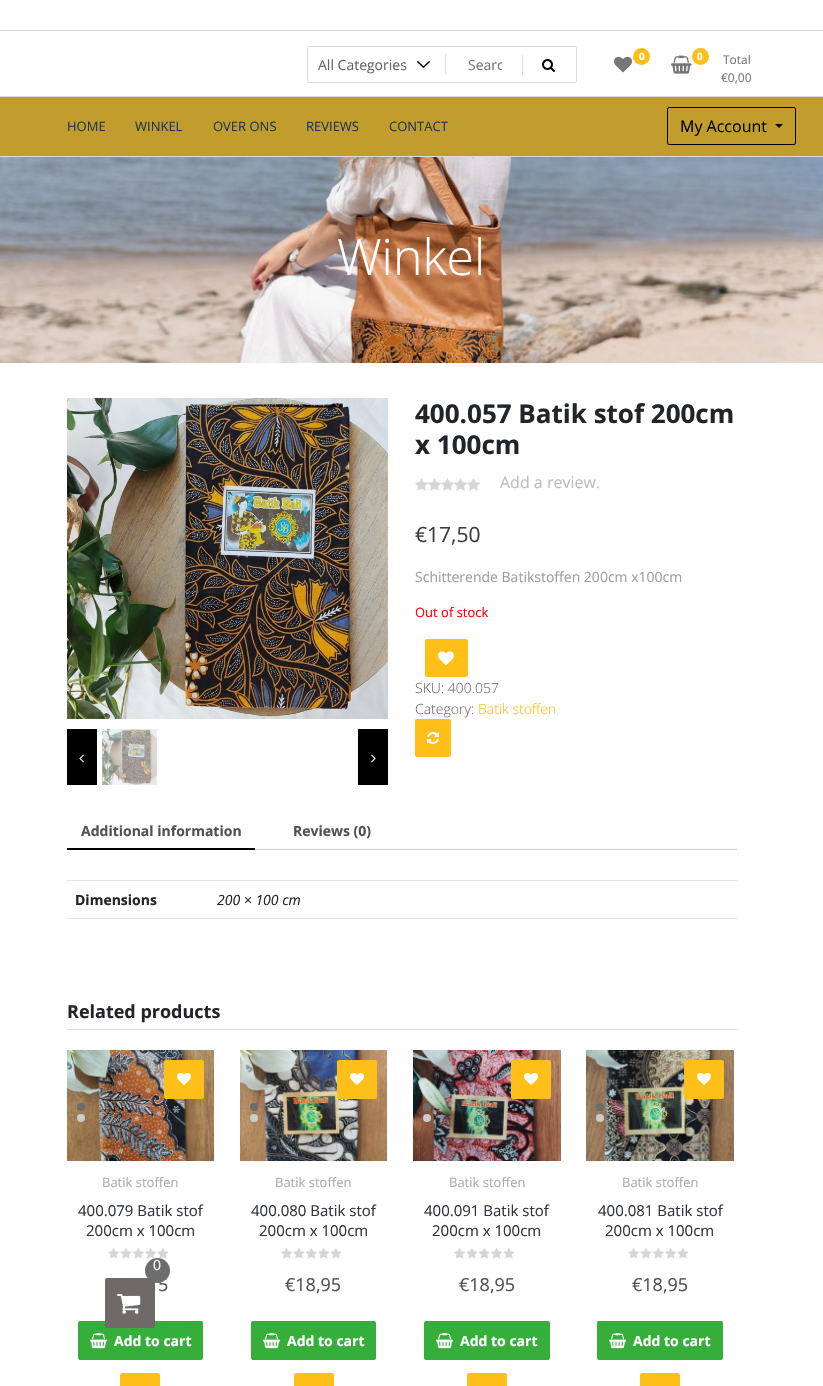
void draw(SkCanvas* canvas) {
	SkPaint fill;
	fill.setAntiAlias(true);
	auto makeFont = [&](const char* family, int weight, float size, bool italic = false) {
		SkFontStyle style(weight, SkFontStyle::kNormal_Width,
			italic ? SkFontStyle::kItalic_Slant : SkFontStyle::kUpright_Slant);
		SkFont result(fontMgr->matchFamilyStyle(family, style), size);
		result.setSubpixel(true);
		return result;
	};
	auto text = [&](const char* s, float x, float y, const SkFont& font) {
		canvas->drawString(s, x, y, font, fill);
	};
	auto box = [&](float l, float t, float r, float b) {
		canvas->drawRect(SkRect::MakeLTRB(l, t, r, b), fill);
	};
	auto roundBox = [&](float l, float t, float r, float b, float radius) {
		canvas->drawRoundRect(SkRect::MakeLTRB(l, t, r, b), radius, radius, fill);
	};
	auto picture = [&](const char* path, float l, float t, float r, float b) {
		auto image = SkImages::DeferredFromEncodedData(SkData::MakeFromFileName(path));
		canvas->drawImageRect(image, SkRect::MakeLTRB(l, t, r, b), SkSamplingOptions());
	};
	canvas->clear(0xFFFFFFFF);
	fill.setColor(0xFFE6E6E6);
	box(66, 918, 737, 919);
	fill.setColor(0xFFDDDDDD);
	box(0, 30, 823, 31);
	fill.setStyle(SkPaint::kStroke_Style);
	fill.setStrokeWidth(1);
	canvas->drawRoundRect(SkRect::MakeLTRB(307.5f, 46.5f, 576.5f, 82.5f), 1.5f, 1.5f, fill);
	fill.setStyle(SkPaint::kFill_Style);
	fill.setColor(0xFFFFFFFF);
	roundBox(308, 47, 576, 82, 1);
	picture("image0.png", 417, 61, 430, 68);
	fill.setColor(0xFFDDDDDD);
	box(445, 54, 446, 74);
	box(522, 55, 523, 75);
	picture("image1.png", 542, 59, 555, 72);
	picture("image2.png", 614, 56, 632, 73);
	fill.setColor(0xFFFFBF19);
	canvas->drawCircle(641.5f, 56.5f, 8.5f, fill);
	picture("image3.png", 671, 55, 692, 74);
	canvas->drawCircle(700.5f, 56.5f, 8.5f, fill);
	fill.setColor(0xFFC09D2C);
	box(0, 97, 823, 156);
	fill.setColor(0xFFDDDDDD);
	box(0, 96, 823, 97);
	box(0, 156, 823, 157);
	fill.setStyle(SkPaint::kStroke_Style);
	fill.setColor(0xFF000000);
	canvas->drawRoundRect(SkRect::MakeLTRB(667.5f, 107.5f, 795.5f, 144.5f), 1.5f, 1.5f, fill);
	fill.setStyle(SkPaint::kFill_Style);
	canvas->drawPath(SkPathBuilder().moveTo(775, 124).lineTo(783, 124).lineTo(779, 128).close().detach(), fill);
	picture("image4.png", 0, 157, 823, 363);
	picture("image5.png", 67, 398, 388, 719);
	box(67, 729, 97, 785);
	picture("image6.png", 79, 754, 84, 763);
	box(358, 729, 388, 785);
	picture("image7.png", 371, 754, 376, 763);
	picture("image8.png", 102, 729, 157, 785);
	picture("image9.png", 415, 478, 480, 491);
	fill.setColor(0xFFFFBF19);
	roundBox(425, 639, 468, 677, 2);
	picture("image10.png", 438, 651, 454, 666);
	roundBox(415, 719, 451, 757, 2);
	picture("image11.png", 427, 732, 439, 744);
	fill.setColor(0xFF000000);
	box(67, 848, 255, 850);
	fill.setColor(0xFFCFC8D8);
	box(255, 849, 737, 850);
	fill.setColor(0xFFE6E6E6);
	box(67, 880, 737, 881);
	fill.setColor(0xFFCFCFCF);
	box(216, 918, 217, 919);
	fill.setColor(0xFFDDDDDD);
	box(67, 1029, 737, 1030);
	picture("image12.png", 67, 1050, 214, 1161);
	fill.setColor(0xFF6C6C6C);
	canvas->drawCircle(81, 1107, 4, fill);
	fill.setColor(0xFFCCCCCC);
	canvas->drawCircle(81, 1118, 4, fill);
	fill.setColor(0xFFFFBF19);
	roundBox(164, 1060, 204, 1099, 2);
	picture("image13.png", 177, 1073, 191, 1085);
	picture("image14.png", 108, 1248, 169, 1259);
	fill.setColor(0xFF36AF3A);
	roundBox(78, 1321, 203, 1360, 2);
	picture("image15.png", 90, 1333, 108, 1349);
	fill.setColor(0xFFFFBF19);
	roundBox(120, 1373, 160, 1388, 2);
	picture("image16.png", 240, 1050, 387, 1161);
	fill.setColor(0xFF6C6C6C);
	canvas->drawCircle(254, 1107, 4, fill);
	fill.setColor(0xFFCCCCCC);
	canvas->drawCircle(254, 1118, 4, fill);
	fill.setColor(0xFFFFBF19);
	roundBox(337, 1060, 377, 1099, 2);
	picture("image13.png", 350, 1073, 364, 1085);
	picture("image14.png", 281, 1248, 342, 1259);
	fill.setColor(0xFF36AF3A);
	roundBox(251, 1321, 376, 1360, 2);
	picture("image15.png", 263, 1333, 281, 1349);
	fill.setColor(0xFFFFBF19);
	roundBox(294, 1373, 334, 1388, 2);
	picture("image17.png", 413, 1050, 561, 1161);
	fill.setColor(0xFF6C6C6C);
	canvas->drawCircle(427, 1107, 4, fill);
	fill.setColor(0xFFCCCCCC);
	canvas->drawCircle(427, 1118, 4, fill);
	fill.setColor(0xFFFFBF19);
	roundBox(511, 1060, 551, 1099, 2);
	picture("image13.png", 524, 1073, 538, 1085);
	picture("image14.png", 454, 1248, 515, 1259);
	fill.setColor(0xFF36AF3A);
	roundBox(424, 1321, 550, 1360, 2);
	picture("image15.png", 436, 1333, 454, 1349);
	fill.setColor(0xFFFFBF19);
	roundBox(467, 1373, 507, 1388, 2);
	picture("image18.png", 586, 1050, 734, 1161);
	fill.setColor(0xFF6C6C6C);
	canvas->drawCircle(600, 1107, 4, fill);
	fill.setColor(0xFFCCCCCC);
	canvas->drawCircle(600, 1118, 4, fill);
	fill.setColor(0xFFFFBF19);
	roundBox(684, 1060, 724, 1099, 2);
	picture("image13.png", 697, 1073, 711, 1085);
	picture("image14.png", 628, 1248, 689, 1259);
	fill.setColor(0xFF36AF3A);
	roundBox(597, 1321, 723, 1360, 2);
	picture("image15.png", 609, 1333, 627, 1349);
	fill.setColor(0xFFFFBF19);
	roundBox(640, 1373, 680, 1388, 2);
	fill.setColor(0xFF6E6A6A);
	roundBox(105, 1278, 155, 1328, 2);
	picture("image19.png", 117, 1294, 141, 1314);
	auto font1 = makeFont("Open Sans", 400, 14);
	fill.setColor(0xFF666666);
	text("All Categories", 318, 70, font1);
	canvas->save();
	canvas->clipRect(SkRect::MakeLTRB(468, 55, 502, 74));
	fill.setColor(0xFF757575);
	text("Searc", 468, 70, font1);
	canvas->restore();
	auto font2 = makeFont("Open Sans", 700, 10);
	fill.setColor(0xFFFFFFFF);
	text("0", 639, 60, font2);
	text("0", 697, 60, font2);
	auto font3 = makeFont("Open Sans", 400, 12);
	fill.setColor(0xFF757575);
	text("Total", 723, 64, font3);
	text("€0,00", 721, 82, font3);
	auto font4 = makeFont("Open Sans", 400, 13);
	fill.setColor(0xFF1E364E);
	text("HOME", 67, 131, font4);
	text("WINKEL", 135, 131, font4);
	text("OVER ONS", 213, 131, font4);
	text("REVIEWS", 306, 131, font4);
	text("CONTACT", 389, 131, font4);
	auto font5 = makeFont("Open Sans", 400, 16);
	fill.setColor(0xFF000000);
	text("My Account", 680, 132, font5);
	auto font6 = makeFont("Open Sans", 300, 50);
	fill.setColor(0xFFFFFFFF);
	text("Winkel", 337, 275, font6);
	auto font7 = makeFont("Open Sans", 700, 26);
	fill.setColor(0xFF212529);
	text("400.057 Batik stof 200cm", 415, 423, font7);
	text("x 100cm", 415, 454, font7);
	fill.setColor(0xFFBDBDBD);
	text("Add a review.", 500, 488, font5);
	auto font8 = makeFont("Open Sans", 400, 21);
	fill.setColor(0xFF3C3C3C);
	text("€17,50", 415, 542, font8);
	fill.setColor(0xFF9E9E9E);
	text("Schitterende Batikstoffen 200cm x100cm", 415, 582, font1);
	fill.setColor(0xFFFF0000);
	text("Out of stock", 415, 617, font4);
	auto font9 = makeFont("Open Sans", 300, 14);
	fill.setColor(0xFF6C6C6C);
	text("SKU: 400.057", 415, 693, font9);
	text("Category:", 415, 714, font9);
	fill.setColor(0xFFFFBF19);
	text("Batik stoffen", 478, 714, font9);
	auto font10 = makeFont("Open Sans", 700, 14);
	fill.setColor(0xFF515151);
	text("Additional information", 81, 836, font10);
	text("Reviews (0)", 293, 836, font10);
	fill.setColor(0xFF212529);
	text("Dimensions", 75, 905, font10);
	auto font11 = makeFont("Open Sans", 400, 14, true);
	text("200 × 100 cm", 217, 905, font11);
	auto font12 = makeFont("Open Sans", 700, 18);
	text("Related products", 67, 1018, font12);
	fill.setColor(0xFFACACAC);
	text("Batik stoffen", 102, 1187, font4);
	auto font13 = makeFont("Open Sans", 400, 15);
	fill.setColor(0xFF2F3440);
	text("400.079 Batik stof", 78, 1216, font13);
	text("200cm x 100cm", 86, 1236, font13);
	auto font14 = makeFont("Open Sans", 400, 18);
	fill.setColor(0xFF515151);
	text("5", 158, 1291, font14);
	fill.setColor(0xFFFFFFFF);
	text("Add to cart", 114, 1346, font10);
	fill.setColor(0xFFACACAC);
	text("Batik stoffen", 275, 1187, font4);
	fill.setColor(0xFF2F3440);
	text("400.080 Batik stof", 251, 1216, font13);
	text("200cm x 100cm", 259, 1236, font13);
	fill.setColor(0xFF515151);
	text("€18,95", 285, 1291, font14);
	fill.setColor(0xFFFFFFFF);
	text("Add to cart", 287, 1346, font10);
	fill.setColor(0xFFACACAC);
	text("Batik stoffen", 449, 1187, font4);
	fill.setColor(0xFF2F3440);
	text("400.091 Batik stof", 424, 1216, font13);
	text("200cm x 100cm", 432, 1236, font13);
	fill.setColor(0xFF515151);
	text("€18,95", 459, 1291, font14);
	fill.setColor(0xFFFFFFFF);
	text("Add to cart", 460, 1346, font10);
	fill.setColor(0xFFACACAC);
	text("Batik stoffen", 622, 1187, font4);
	fill.setColor(0xFF2F3440);
	text("400.081 Batik stof", 598, 1216, font13);
	text("200cm x 100cm", 605, 1236, font13);
	fill.setColor(0xFF515151);
	text("€18,95", 632, 1291, font14);
	fill.setColor(0xFFFFFFFF);
	text("Add to cart", 633, 1346, font10);
	fill.setColor(0xFF6C6C6C);
	canvas->drawCircle(157.5f, 1270.5f, 12.5f, fill);
	fill.setColor(0xFFFFFFFF);
	text("0", 153, 1270, font1);
}
